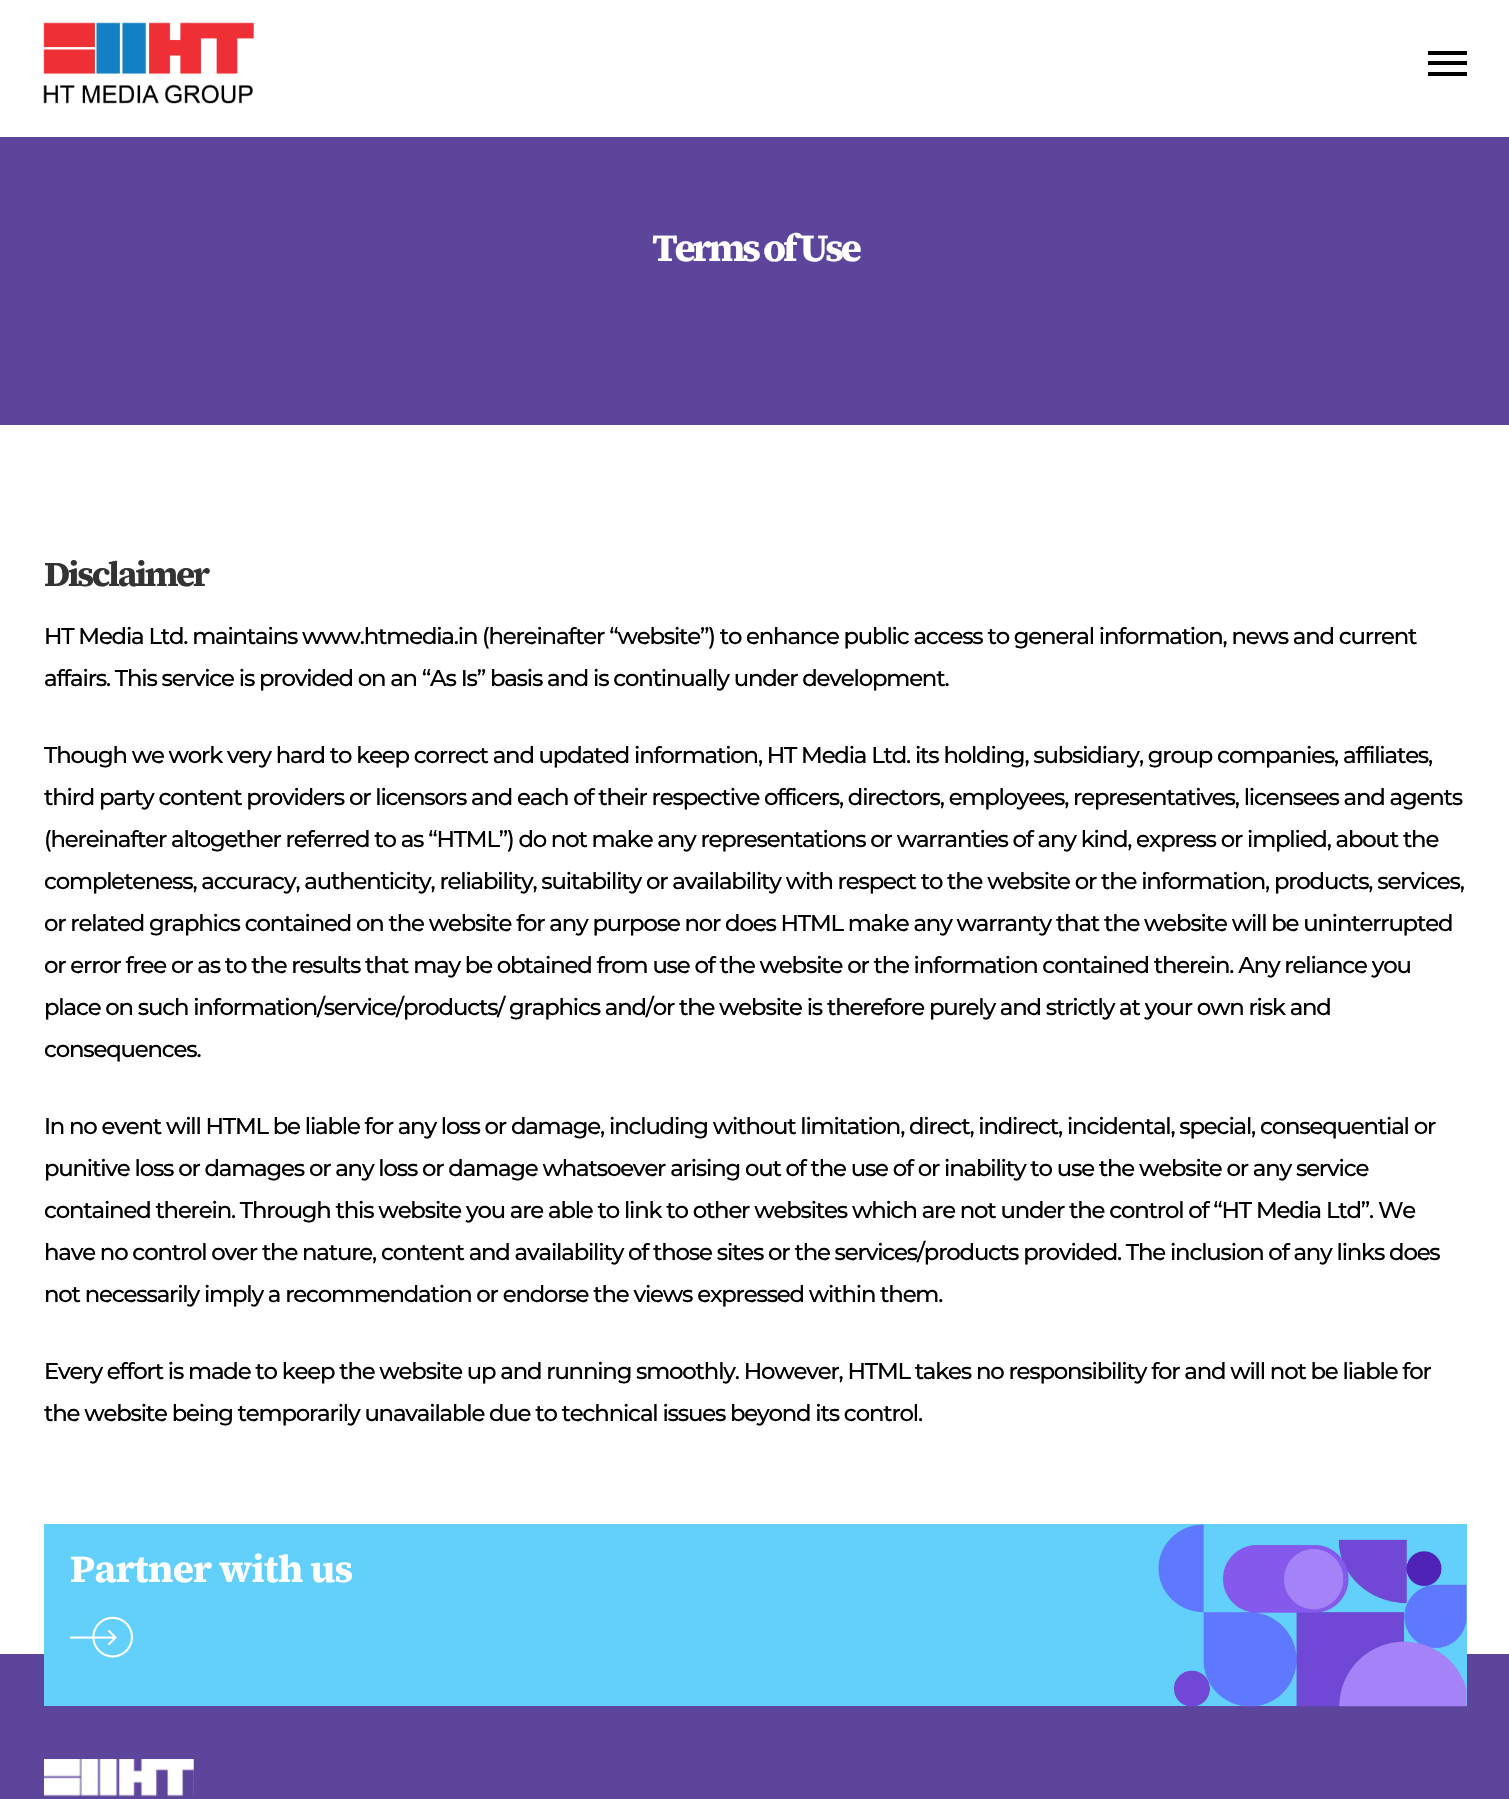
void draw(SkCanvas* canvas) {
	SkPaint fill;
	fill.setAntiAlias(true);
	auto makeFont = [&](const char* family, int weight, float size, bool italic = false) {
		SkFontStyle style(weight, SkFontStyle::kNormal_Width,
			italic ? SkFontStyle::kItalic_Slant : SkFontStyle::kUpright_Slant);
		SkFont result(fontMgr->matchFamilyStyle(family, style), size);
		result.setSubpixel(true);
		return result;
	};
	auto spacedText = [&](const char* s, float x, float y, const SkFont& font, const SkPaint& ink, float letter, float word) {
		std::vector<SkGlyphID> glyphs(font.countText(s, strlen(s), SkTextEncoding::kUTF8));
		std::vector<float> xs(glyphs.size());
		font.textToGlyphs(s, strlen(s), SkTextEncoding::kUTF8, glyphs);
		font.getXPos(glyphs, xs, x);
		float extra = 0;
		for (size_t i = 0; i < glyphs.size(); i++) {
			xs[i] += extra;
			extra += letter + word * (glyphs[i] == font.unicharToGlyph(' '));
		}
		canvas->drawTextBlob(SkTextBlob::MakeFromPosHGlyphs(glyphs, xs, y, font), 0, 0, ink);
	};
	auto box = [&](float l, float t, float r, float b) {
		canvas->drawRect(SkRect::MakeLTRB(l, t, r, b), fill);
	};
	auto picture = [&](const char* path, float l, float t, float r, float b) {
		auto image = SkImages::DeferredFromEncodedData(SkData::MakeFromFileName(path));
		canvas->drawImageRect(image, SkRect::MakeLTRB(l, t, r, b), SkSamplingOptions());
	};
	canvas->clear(0xFFFFFFFF);
	picture("image0.png", 43, 22, 254, 104);
	fill.setColor(0xFF000000);
	box(1428, 51, 1467, 55);
	box(1428, 61, 1467, 65);
	box(1428, 72, 1467, 76);
	fill.setColor(0xFF5E459C);
	box(0, 137, 1509, 425);
	box(0, 1654, 1509, 1799);
	fill.setColor(0xFF62D0FA);
	box(44, 1524, 1467, 1706);
	picture("image1.png", 1158, 1524, 1467, 1707);
	picture("image2.png", 70, 1616, 133, 1658);
	picture("image3.png", 44, 1759, 194, 1797);
	auto font1 = makeFont("Source Serif 4", 700, 38.5f);
	fill.setColor(0xFFFFFFFF);
	spacedText("Terms of Use", 652, 261, font1, fill, -3.25f, 0);
	auto font2 = makeFont("Source Serif 4", 700, 35);
	fill.setColor(0xFF333333);
	spacedText("Disclaimer", 44, 586, font2, fill, -2.5f, 0);
	auto font3 = makeFont("Montserrat", 500, 22.75f);
	fill.setColor(0xFF000000);
	spacedText("HT Media Ltd. maintains www.htmedia.in (hereinafter “website”) to enhance public access to general information, news and current", 44, 644, font3, fill, -1.19f, 0);
	spacedText("affairs. This service is provided on an “As Is” basis and is continually under development.", 44, 686, font3, fill, -1.19f, 0);
	spacedText("Though we work very hard to keep correct and updated information, HT Media Ltd. its holding, subsidiary, group companies, affiliates,", 44, 763, font3, fill, -1.19f, 0);
	spacedText("third party content providers or licensors and each of their respective officers, directors, employees, representatives, licensees and agents", 44, 805, font3, fill, -1.19f, 0);
	spacedText("(hereinafter altogether referred to as “HTML”) do not make any representations or warranties of any kind, express or implied, about the", 44, 847, font3, fill, -1.19f, 0);
	spacedText("completeness, accuracy, authenticity, reliability, suitability or availability with respect to the website or the information, products, services,", 44, 889, font3, fill, -1.19f, 0);
	spacedText("or related graphics contained on the website for any purpose nor does HTML make any warranty that the website will be uninterrupted", 44, 931, font3, fill, -1.19f, 0);
	spacedText("or error free or as to the results that may be obtained from use of the website or the information contained therein. Any reliance you", 44, 973, font3, fill, -1.19f, 0);
	spacedText("place on such information/service/products/ graphics and/or the website is therefore purely and strictly at your own risk and", 44, 1015, font3, fill, -1.19f, 0);
	spacedText("consequences.", 44, 1057, font3, fill, -1.19f, 0);
	spacedText("In no event will HTML be liable for any loss or damage, including without limitation, direct, indirect, incidental, special, consequential or", 44, 1134, font3, fill, -1.19f, 0);
	spacedText("punitive loss or damages or any loss or damage whatsoever arising out of the use of or inability to use the website or any service", 44, 1176, font3, fill, -1.19f, 0);
	spacedText("contained therein. Through this website you are able to link to other websites which are not under the control of “HT Media Ltd”. We", 44, 1218, font3, fill, -1.19f, 0);
	spacedText("have no control over the nature, content and availability of those sites or the services/products provided. The inclusion of any links does", 44, 1260, font3, fill, -1.19f, 0);
	spacedText("not necessarily imply a recommendation or endorse the views expressed within them.", 44, 1302, font3, fill, -1.19f, 0);
	spacedText("Every effort is made to keep the website up and running smoothly. However, HTML takes no responsibility for and will not be liable for", 44, 1379, font3, fill, -1.19f, 0);
	spacedText("the website being temporarily unavailable due to technical issues beyond its control.", 44, 1421, font3, fill, -1.19f, 0);
	fill.setColor(0xFFFFFFFF);
	spacedText("Partner with us", 70, 1582, font1, fill, -0.75f, 0);
}
